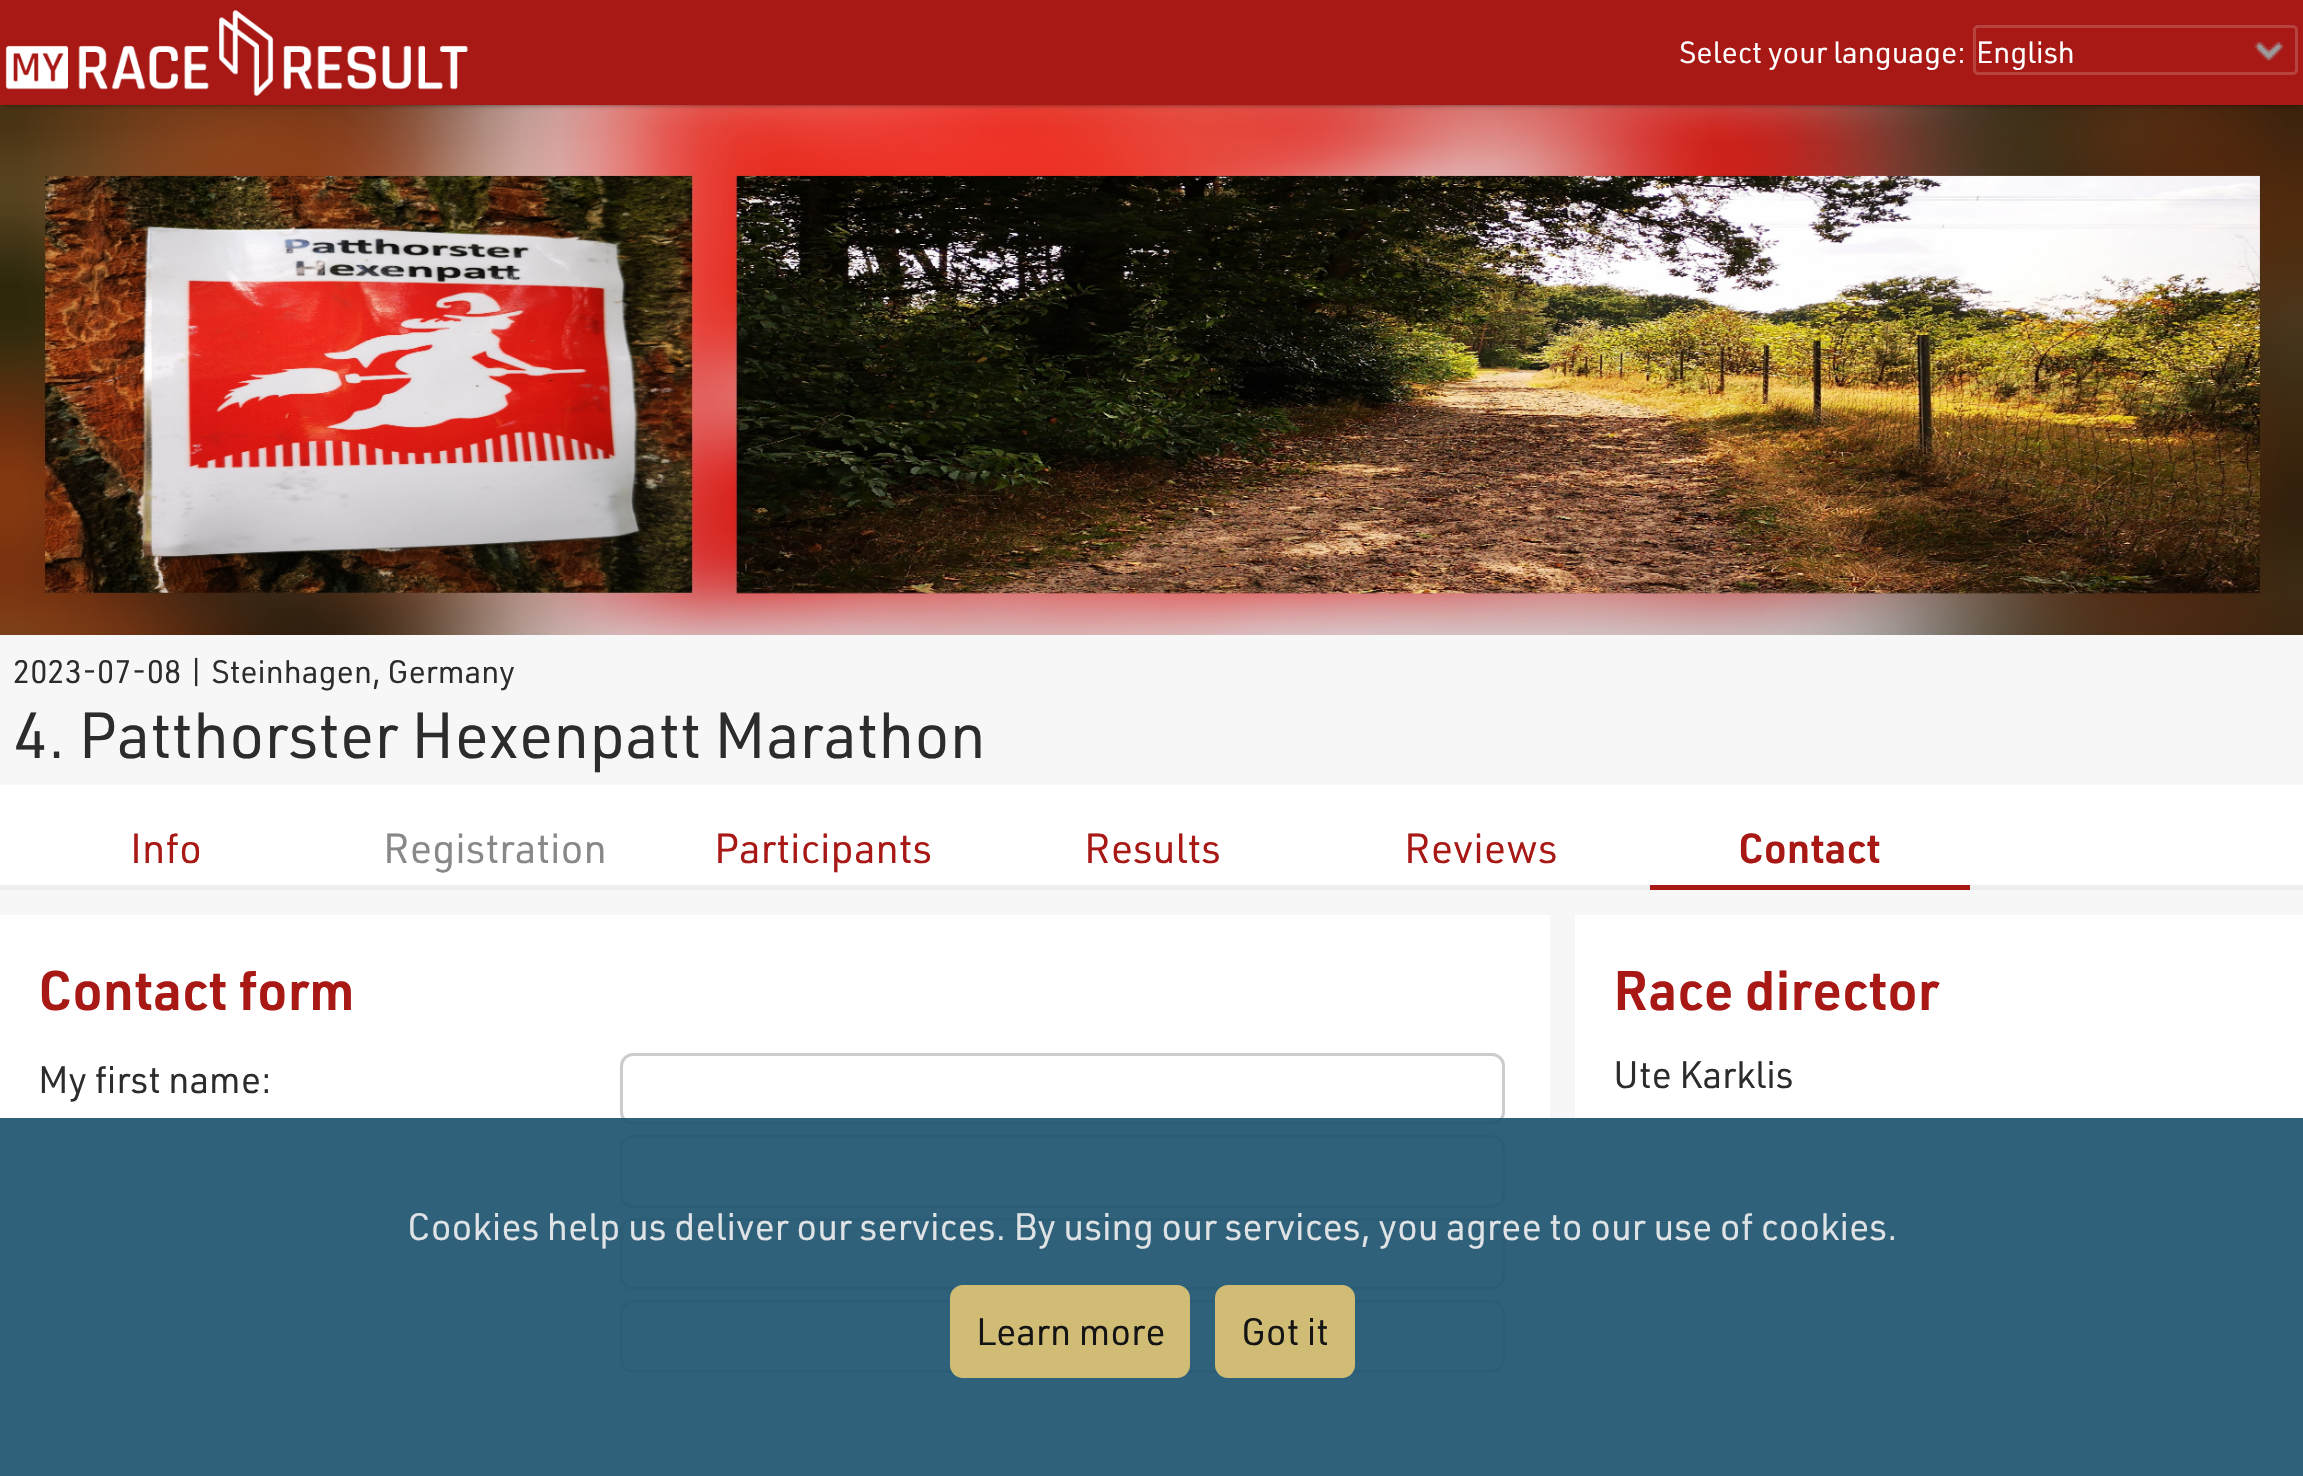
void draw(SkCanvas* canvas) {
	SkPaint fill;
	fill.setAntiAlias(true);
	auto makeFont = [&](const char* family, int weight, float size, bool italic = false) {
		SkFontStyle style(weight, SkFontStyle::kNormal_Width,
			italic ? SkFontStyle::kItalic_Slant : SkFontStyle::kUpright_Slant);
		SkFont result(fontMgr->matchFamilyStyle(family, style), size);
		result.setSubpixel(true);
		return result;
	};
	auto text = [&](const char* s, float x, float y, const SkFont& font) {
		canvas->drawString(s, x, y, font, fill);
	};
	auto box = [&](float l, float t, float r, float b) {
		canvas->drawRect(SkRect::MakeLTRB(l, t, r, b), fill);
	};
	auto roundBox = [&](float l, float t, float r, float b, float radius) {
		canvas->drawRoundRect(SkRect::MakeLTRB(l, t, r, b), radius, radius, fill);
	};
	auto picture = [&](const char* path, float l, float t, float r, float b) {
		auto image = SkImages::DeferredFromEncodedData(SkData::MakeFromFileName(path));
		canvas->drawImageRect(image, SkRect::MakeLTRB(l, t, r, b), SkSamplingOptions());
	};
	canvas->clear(0xFFF7F7F7);
	picture("image2.png", 0, 105, 2303, 635);
	fill.setColor(0x85000000);
	fill.setMaskFilter(SkMaskFilter::MakeBlur(kNormal_SkBlurStyle, 2.5f));
	canvas->drawRect(SkRect::MakeLTRB(5, 10, 2300, 105), fill);
	fill.setMaskFilter(nullptr);
	fill.setColor(0xFFA81815);
	box(0, 0, 2303, 105);
	picture("image0.png", 5, 10, 468, 97);
	picture("image1.png", 2254, 41, 2284, 61);
	fill.setStyle(SkPaint::kStroke_Style);
	fill.setStrokeWidth(3);
	fill.setColor(0xFFB74340);
	canvas->drawRoundRect(SkRect::MakeLTRB(1974.5f, 26.5f, 2296.5f, 73.5f), 3.5f, 3.5f, fill);
	fill.setStyle(SkPaint::kFill_Style);
	fill.setColor(0xFFFFFFFF);
	box(0, 785, 2303, 885);
	fill.setColor(0xFFEEEEEE);
	box(0, 885, 2303, 890);
	fill.setColor(0xFFA81815);
	box(1650, 885, 1970, 890);
	fill.setColor(0xFFFFFFFF);
	box(0, 915, 1550, 1476);
	fill.setStyle(SkPaint::kStroke_Style);
	fill.setColor(0xFFCCCCCC);
	canvas->drawRoundRect(SkRect::MakeLTRB(621.5f, 1054.5f, 1503.5f, 1123.5f), 11.5f, 11.5f, fill);
	canvas->drawRoundRect(SkRect::MakeLTRB(621.5f, 1136.5f, 1503.5f, 1206.5f), 11.5f, 11.5f, fill);
	canvas->drawRoundRect(SkRect::MakeLTRB(621.5f, 1219.5f, 1503.5f, 1288.5f), 11.5f, 11.5f, fill);
	canvas->drawRoundRect(SkRect::MakeLTRB(621.5f, 1301.5f, 1503.5f, 1371.5f), 11.5f, 11.5f, fill);
	fill.setStyle(SkPaint::kFill_Style);
	fill.setColor(0xFFFFFFFF);
	box(1575, 915, 2303, 1385);
	fill.setColor(0xEB1D546F);
	box(0, 1118, 2303, 1476);
	fill.setColor(0xEBDDC374);
	roundBox(950, 1285, 1190, 1378, 13);
	roundBox(1215, 1285, 1355, 1378, 13);
	auto font1 = makeFont("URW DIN", 400, 30);
	fill.setColor(0xFFFFFFFF);
	text("Select your language:", 1679, 63, font1);
	text("English", 1976, 63, font1);
	auto font2 = makeFont("URW DIN", 400, 31.9f);
	fill.setColor(0xFF2C2C2C);
	text("2023-07-08 | Steinhagen, Germany", 13, 683, font2);
	auto font3 = makeFont("URW DIN", 400, 63.75f);
	text("4. Patthorster Hexenpatt Marathon", 13, 758, font3);
	auto font4 = makeFont("URW DIN", 400, 41.25f);
	fill.setColor(0xFFA81815);
	text("Info", 130, 863, font4);
	fill.setColor(0xFF888888);
	text("Registration", 383, 863, font4);
	fill.setColor(0xFFA81815);
	text("Participants", 714, 863, font4);
	text("Results", 1084, 863, font4);
	text("Reviews", 1404, 863, font4);
	auto font5 = makeFont("URW DIN", 600, 41.25f);
	text("Contact", 1738, 863, font5);
	auto font6 = makeFont("URW DIN", 600, 54.75f);
	text("Contact form", 38, 1010, font6);
	auto font7 = makeFont("URW DIN", 400, 37.5f);
	fill.setColor(0xFF2C2C2C);
	text("My first name:", 38, 1093, font7);
	fill.setColor(0xFFA81815);
	text("Race director", 1613, 1010, font6);
	fill.setColor(0xFF2C2C2C);
	text("Ute Karklis", 1613, 1088, font7);
	fill.setColor(0xFFDFE3E5);
	text("Cookies help us deliver our services. By using our services, you agree to our use of cookies.", 407, 1240, font7);
	fill.setColor(0xFF141414);
	text("Learn more", 976, 1345, font7);
	text("Got it", 1241, 1345, font7);
}
